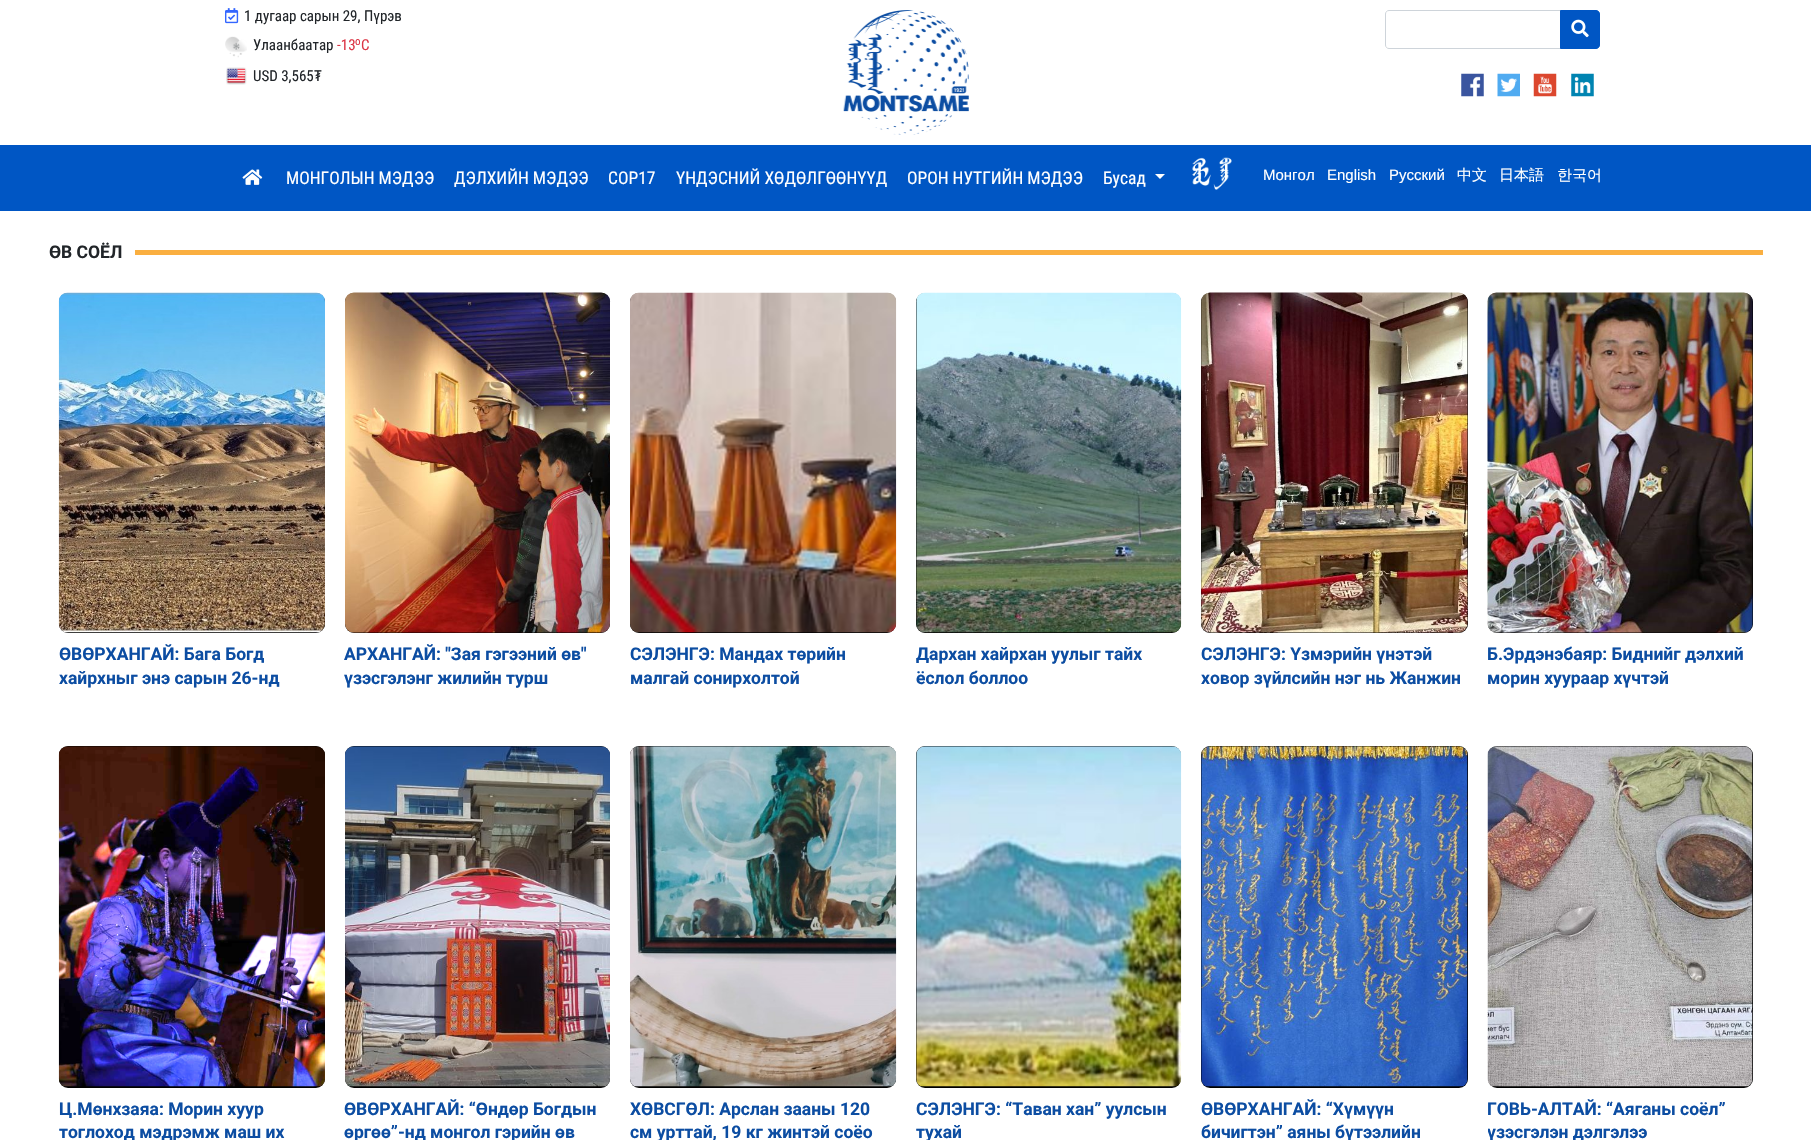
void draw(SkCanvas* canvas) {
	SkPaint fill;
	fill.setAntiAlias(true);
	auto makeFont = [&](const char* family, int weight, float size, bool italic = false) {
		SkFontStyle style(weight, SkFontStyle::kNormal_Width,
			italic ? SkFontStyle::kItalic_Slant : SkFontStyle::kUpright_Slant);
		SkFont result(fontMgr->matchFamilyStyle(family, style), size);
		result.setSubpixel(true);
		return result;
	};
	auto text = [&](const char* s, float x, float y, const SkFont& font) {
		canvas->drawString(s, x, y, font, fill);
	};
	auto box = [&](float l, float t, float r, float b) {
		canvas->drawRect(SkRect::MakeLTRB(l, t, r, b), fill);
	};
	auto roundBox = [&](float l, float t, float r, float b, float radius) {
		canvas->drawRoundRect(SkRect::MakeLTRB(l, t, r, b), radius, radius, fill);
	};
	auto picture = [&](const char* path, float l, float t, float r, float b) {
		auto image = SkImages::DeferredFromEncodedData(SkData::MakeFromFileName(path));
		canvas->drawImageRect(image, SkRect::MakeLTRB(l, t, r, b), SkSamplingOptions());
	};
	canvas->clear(0xFFFFFFFF);
	picture("image0.png", 225, 8, 239, 24);
	picture("image1.png", 225, 36, 247, 58);
	picture("image2.png", 226, 67, 247, 85);
	picture("image3.png", 843, 10, 969, 135);
	fill.setStyle(SkPaint::kStroke_Style);
	fill.setStrokeWidth(1);
	fill.setColor(0xFFCED4DA);
	canvas->drawPath(SkPathBuilder().moveTo(1389, 10.5f).lineTo(1560.5f, 10.5f).lineTo(1560.5f, 48.5f).lineTo(1389, 48.5f).cubicTo(1387, 48.5f, 1385.5f, 47, 1385.5f, 45).lineTo(1385.5f, 14).cubicTo(1385.5f, 12, 1387, 10.5f, 1389, 10.5f).close().detach(), fill);
	fill.setStyle(SkPaint::kFill_Style);
	fill.setColor(0xFF0056C4);
	canvas->drawPath(SkPathBuilder().moveTo(1560.5f, 10.5f).lineTo(1596, 10.5f).cubicTo(1598, 10.5f, 1599.5f, 12, 1599.5f, 14).lineTo(1599.5f, 45).cubicTo(1599.5f, 47, 1598, 48.5f, 1596, 48.5f).lineTo(1560.5f, 48.5f).close().detach(), fill);
	fill.setStyle(SkPaint::kStroke_Style);
	canvas->drawPath(SkPathBuilder().moveTo(1560.5f, 10.5f).lineTo(1596, 10.5f).cubicTo(1598, 10.5f, 1599.5f, 12, 1599.5f, 14).lineTo(1599.5f, 45).cubicTo(1599.5f, 47, 1598, 48.5f, 1596, 48.5f).lineTo(1560.5f, 48.5f).close().detach(), fill);
	picture("image4.png", 1571, 19, 1589, 38);
	picture("image5.png", 1461, 73, 1484, 97);
	picture("image6.png", 1497, 73, 1520, 97);
	picture("image7.png", 1533, 73, 1557, 97);
	picture("image8.png", 1571, 73, 1594, 97);
	fill.setStyle(SkPaint::kFill_Style);
	box(0, 145, 1811, 211);
	picture("image9.png", 242, 169, 263, 185);
	fill.setColor(0xFFFFFFFF);
	canvas->drawPath(SkPathBuilder().moveTo(1155, 174).lineTo(1165, 174).lineTo(1160, 179).close().detach(), fill);
	picture("image10.png", 1192, 157, 1232, 190);
	fill.setColor(0xFFFAAF40);
	box(135, 250, 1763, 255);
	fill.setColor(0xFF000000);
	roundBox(59, 293, 325, 633, 9);
	picture("image11.png", 58, 292, 325, 633);
	roundBox(345, 293, 610, 633, 9);
	picture("image12.png", 344, 292, 611, 633);
	roundBox(630, 293, 896, 633, 9);
	picture("image13.png", 630, 292, 897, 633);
	roundBox(916, 293, 1181, 633, 9);
	picture("image14.png", 916, 292, 1182, 633);
	roundBox(1201, 293, 1468, 633, 9);
	picture("image15.png", 1201, 292, 1468, 633);
	roundBox(1488, 293, 1753, 633, 9);
	picture("image16.png", 1487, 292, 1753, 633);
	roundBox(59, 746, 325, 1088, 9);
	picture("image17.png", 58, 746, 325, 1087);
	roundBox(345, 746, 610, 1088, 9);
	picture("image18.png", 345, 746, 610, 1087);
	roundBox(630, 746, 896, 1088, 9);
	picture("image19.png", 630, 746, 897, 1087);
	roundBox(916, 746, 1181, 1088, 9);
	picture("image20.png", 916, 746, 1182, 1087);
	roundBox(1201, 746, 1468, 1088, 9);
	picture("image21.png", 1201, 746, 1468, 1087);
	roundBox(1488, 746, 1753, 1088, 9);
	picture("image22.png", 1487, 746, 1753, 1087);
	auto font1 = makeFont("Roboto Condensed", 400, 15);
	fill.setColor(0xFF212529);
	text("1 дугаар сарын 29, Пүрэв", 244, 21, font1);
	text("Улаанбаатар", 253, 50, font1);
	fill.setColor(0xFFDC3545);
	text("-13", 337, 50, font1);
	auto font2 = makeFont("Roboto Condensed", 400, 11);
	text("o", 355, 45, font2);
	text("C", 361, 50, font1);
	fill.setColor(0xFF212529);
	text("USD 3,565", 253, 81, font1);
	auto font3 = makeFont("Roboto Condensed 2", 400, 15);
	text("₮", 314, 81, font3);
	auto font4 = makeFont("Roboto Condensed", 400, 17.5f);
	fill.setColor(0xFFFFFFFF);
	text("МОНГОЛЫН МЭДЭЭ", 286, 184, font4);
	text("ДЭЛХИЙН МЭДЭЭ", 454, 184, font4);
	text("COP17", 608, 184, font4);
	text("ҮНДЭСНИЙ ХӨДӨЛГӨӨНҮҮД", 676, 184, font4);
	text("ОРОН НУТГИЙН МЭДЭЭ", 907, 184, font4);
	text("Бусад", 1103, 184, font4);
	auto font5 = makeFont("Liberation Sans", 400, 15);
	text("Монгол", 1263, 180, font5);
	text("English", 1327, 180, font5);
	text("Русский", 1389, 180, font5);
	auto font6 = makeFont("WenQuanYi Zen Hei", 500, 15);
	text("中文", 1457, 180, font6);
	text("日本語", 1499, 180, font6);
	text("한국어", 1557, 180, font6);
	auto font7 = makeFont("Roboto", 700, 17.5f);
	fill.setColor(0xFF212529);
	text("ӨВ СОЁЛ", 49, 258, font7);
	fill.setColor(0xFF0C4DA2);
	text("ӨВӨРХАНГАЙ: Бага Богд", 59, 660, font7);
	text("хайрхныг энэ сарын 26-нд", 59, 684, font7);
	text("АРХАНГАЙ: \"Зая гэгээний өв\"", 344, 660, font7);
	text("үзэсгэлэнг жилийн турш", 344, 684, font7);
	text("СЭЛЭНГЭ: Мандах төрийн", 630, 660, font7);
	text("малгай сонирхолтой", 630, 684, font7);
	canvas->save();
	canvas->clipRect(SkRect::MakeLTRB(916, 643, 1181, 690));
	text("Дархан хайрхан уулыг тайх", 916, 660, font7);
	canvas->restore();
	text("ёслол боллоо", 916, 684, font7);
	text("СЭЛЭНГЭ: Үзмэрийн үнэтэй", 1201, 660, font7);
	text("ховор зүйлсийн нэг нь Жанжин", 1201, 684, font7);
	text("Б.Эрдэнэбаяр: Биднийг дэлхий", 1487, 660, font7);
	text("морин хуураар хүчтэй", 1487, 684, font7);
	text("Ц.Мөнхзаяа: Морин хуур", 59, 1115, font7);
	text("тоглоход мэдрэмж маш их", 59, 1138, font7);
	text("ӨВӨРХАНГАЙ: “Өндөр Богдын", 344, 1115, font7);
	text("өргөө”-нд монгол гэрийн өв", 344, 1138, font7);
	text("ХӨВСГӨЛ: Арслан зааны 120", 630, 1115, font7);
	text("см урттай, 19 кг жинтэй соёо", 630, 1138, font7);
	text("СЭЛЭНГЭ: “Таван хан” уулсын", 916, 1115, font7);
	text("тухай", 916, 1138, font7);
	text("ӨВӨРХАНГАЙ: “Хүмүүн", 1201, 1115, font7);
	text("бичигтэн” аяны бүтээлийн", 1201, 1138, font7);
	text("ГОВЬ-АЛТАЙ: “Аяганы соёл”", 1487, 1115, font7);
	canvas->save();
	canvas->clipRect(SkRect::MakeLTRB(1488, 1098, 1753, 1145));
	text("үзэсгэлэн дэлгэлээ", 1487, 1138, font7);
	canvas->restore();
}
